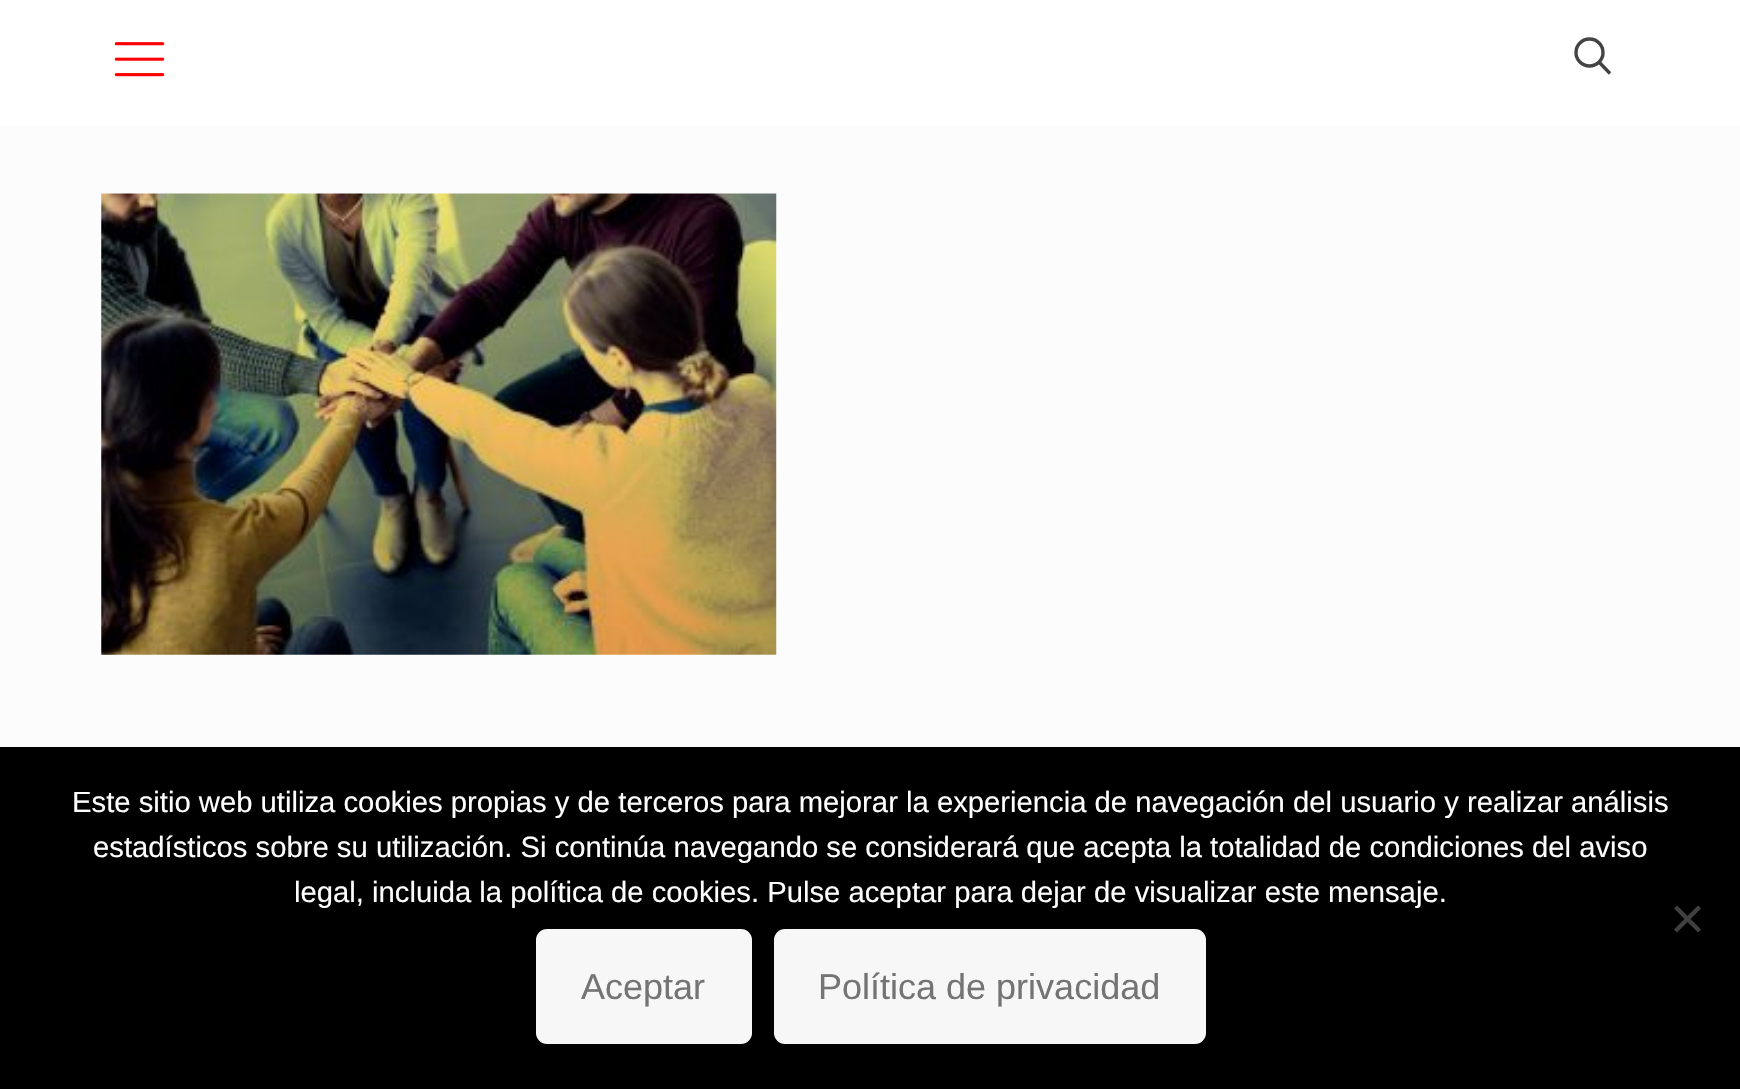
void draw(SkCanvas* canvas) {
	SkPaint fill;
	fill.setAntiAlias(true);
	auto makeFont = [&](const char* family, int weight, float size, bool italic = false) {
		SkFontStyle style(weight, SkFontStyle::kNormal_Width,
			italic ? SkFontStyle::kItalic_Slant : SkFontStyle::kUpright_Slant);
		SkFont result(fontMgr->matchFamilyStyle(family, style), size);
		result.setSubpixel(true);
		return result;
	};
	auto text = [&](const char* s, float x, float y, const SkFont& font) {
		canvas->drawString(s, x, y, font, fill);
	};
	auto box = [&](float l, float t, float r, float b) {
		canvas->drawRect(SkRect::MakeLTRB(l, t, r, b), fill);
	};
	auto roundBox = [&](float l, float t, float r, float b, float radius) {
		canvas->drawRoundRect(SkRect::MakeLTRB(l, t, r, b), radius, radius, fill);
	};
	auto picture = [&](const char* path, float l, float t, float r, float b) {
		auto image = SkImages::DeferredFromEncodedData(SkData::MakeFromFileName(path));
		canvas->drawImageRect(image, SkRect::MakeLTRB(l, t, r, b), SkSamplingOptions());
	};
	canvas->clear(0xFFFCFCFC);
	fill.setColor(0xFFFFFFFF);
	box(0, 0, 1740, 126);
	picture("image0.png", 114, 42, 165, 77);
	fill.setStyle(SkPaint::kStroke_Style);
	fill.setStrokeWidth(3.4f);
	fill.setColor(0xFF444444);
	canvas->drawCircle(1589.5f, 52.5f, 13.5f, fill);
	canvas->drawPath(SkPathBuilder().moveTo(1599, 62).lineTo(1610, 73.5f).detach(), fill);
	picture("image1.png", 101, 193, 777, 655);
	fill.setStyle(SkPaint::kFill_Style);
	fill.setColor(0xFF000000);
	box(0, 747, 1740, 1089);
	fill.setColor(0xFF404040);
	canvas->drawPath(SkPathBuilder().moveTo(1698, 905.5f).lineTo(1701, 908.5f).lineTo(1677, 932.5f).lineTo(1674, 929.5f).close().detach(), fill);
	canvas->drawPath(SkPathBuilder().moveTo(1674, 908.5f).lineTo(1677, 905.5f).lineTo(1701, 929.5f).lineTo(1698, 932.5f).close().detach(), fill);
	fill.setColor(0xFFF7F7F7);
	roundBox(536, 929, 752, 1044, 11);
	roundBox(774, 929, 1206, 1044, 11);
	auto font1 = makeFont("Liberation Sans", 400, 29.25f);
	fill.setColor(0xFFFFFFFF);
	text("Este sitio web utiliza cookies propias y de terceros para mejorar la experiencia de navegación del usuario y realizar análisis", 72, 812, font1);
	text("estadísticos sobre su utilización. Si continúa navegando se considerará que acepta la totalidad de condiciones del aviso", 93, 857, font1);
	text("legal, incluida la política de cookies. Pulse aceptar para dejar de visualizar este mensaje.", 294, 902, font1);
	auto font2 = makeFont("Liberation Sans", 400, 36);
	fill.setColor(0xFF747474);
	text("Aceptar", 581, 999, font2);
	text("Política de privacidad", 818, 999, font2);
}
